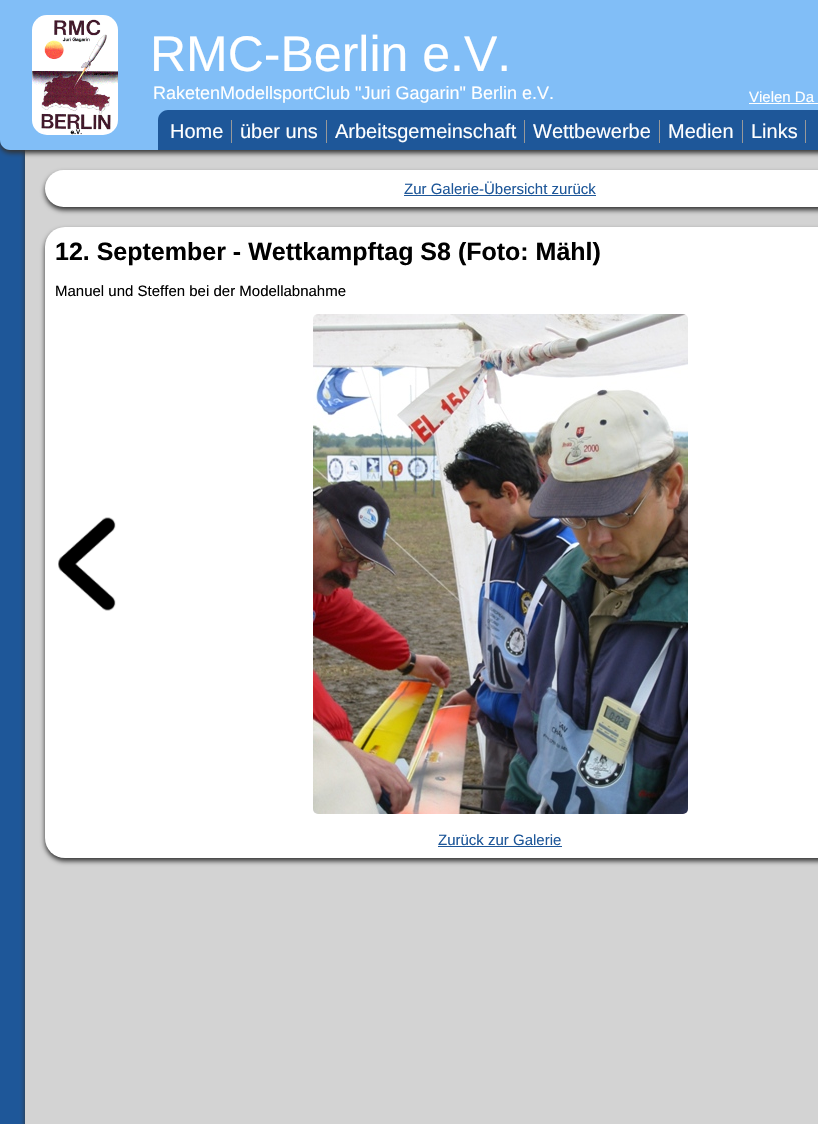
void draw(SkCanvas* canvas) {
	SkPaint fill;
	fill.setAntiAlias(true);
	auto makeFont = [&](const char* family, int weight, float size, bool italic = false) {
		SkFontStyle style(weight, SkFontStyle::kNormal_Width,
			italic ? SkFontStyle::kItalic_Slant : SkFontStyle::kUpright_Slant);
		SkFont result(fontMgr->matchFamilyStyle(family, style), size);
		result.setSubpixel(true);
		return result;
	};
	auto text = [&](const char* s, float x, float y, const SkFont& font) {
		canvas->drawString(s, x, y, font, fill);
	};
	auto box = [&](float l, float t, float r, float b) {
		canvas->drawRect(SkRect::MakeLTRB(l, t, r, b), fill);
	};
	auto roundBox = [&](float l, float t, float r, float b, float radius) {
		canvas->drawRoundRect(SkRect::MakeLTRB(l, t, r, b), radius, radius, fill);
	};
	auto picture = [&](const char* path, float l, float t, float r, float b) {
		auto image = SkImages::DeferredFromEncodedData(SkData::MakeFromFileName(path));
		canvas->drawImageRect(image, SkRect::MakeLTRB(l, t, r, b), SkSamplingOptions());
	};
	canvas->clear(0xFF1E5799);
	fill.setColor(0xFF333333);
	fill.setMaskFilter(SkMaskFilter::MakeBlur(kNormal_SkBlurStyle, 2.5f));
	canvas->drawRect(SkRect::MakeLTRB(25, 123, 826, 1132), fill);
	fill.setMaskFilter(nullptr);
	fill.setColor(0xFFD3D3D3);
	box(25, 150, 818, 1124);
	fill.setColor(0xFF333333);
	fill.setMaskFilter(SkMaskFilter::MakeBlur(kNormal_SkBlurStyle, 2.5f));
	canvas->drawRoundRect(SkRect::MakeLTRB(0, 3, 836, 153), 10, 10, fill);
	fill.setMaskFilter(nullptr);
	fill.setColor(0xFF81BEF7);
	canvas->drawPath(SkPathBuilder().moveTo(0, 0).lineTo(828, 0).lineTo(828, 140).cubicTo(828, 145.5f, 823.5f, 150, 818, 150).lineTo(10, 150).cubicTo(4.5f, 150, 0, 145.5f, 0, 140).close().detach(), fill);
	picture("image0.png", 32, 15, 118, 135);
	fill.setColor(0xFFFFFFFF);
	box(749, 103, 818, 104);
	fill.setColor(0xFF1E5799);
	canvas->drawPath(SkPathBuilder().moveTo(168, 110).lineTo(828, 110).lineTo(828, 140).cubicTo(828, 145.5f, 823.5f, 150, 818, 150).lineTo(158, 150).lineTo(158, 120).cubicTo(158, 114.5f, 162.5f, 110, 168, 110).close().detach(), fill);
	fill.setColor(0xFF999999);
	box(231, 120, 232, 143);
	box(326, 120, 327, 143);
	box(524, 120, 525, 143);
	box(659, 120, 660, 143);
	box(742, 120, 743, 143);
	box(805, 120, 806, 143);
	fill.setColor(0xFF333333);
	fill.setMaskFilter(SkMaskFilter::MakeBlur(kNormal_SkBlurStyle, 2.5f));
	canvas->drawRoundRect(SkRect::MakeLTRB(45, 173, 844, 210), 18.5f, 18.5f, fill);
	fill.setMaskFilter(nullptr);
	fill.setColor(0xFFFFFFFF);
	roundBox(45, 170, 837, 207, 18.5f);
	fill.setColor(0xFF1E5799);
	box(404, 195, 596, 196);
	fill.setColor(0xFF333333);
	fill.setMaskFilter(SkMaskFilter::MakeBlur(kNormal_SkBlurStyle, 2.5f));
	canvas->drawRoundRect(SkRect::MakeLTRB(45, 230, 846, 861), 20, 20, fill);
	fill.setMaskFilter(nullptr);
	fill.setColor(0xFFFFFFFF);
	roundBox(45, 227, 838, 858, 20);
	picture("image1.png", 58, 517, 116, 611);
	picture("image2.png", 313, 314, 688, 814);
	fill.setColor(0xFF1E5799);
	box(438, 846, 562, 847);
	auto font1 = makeFont("Liberation Sans", 400, 50);
	fill.setColor(0xFFFFFFFF);
	text("RMC-Berlin e.V.", 150, 71, font1);
	auto font2 = makeFont("Liberation Sans", 400, 18);
	text("RaketenModellsportClub \"Juri Gagarin\" Berlin e.V.", 153, 99, font2);
	auto font3 = makeFont("Liberation Sans", 400, 15);
	text("Vielen Da", 749, 102, font3);
	auto font4 = makeFont("Liberation Sans", 400, 20);
	text("Home", 170, 138, font4);
	text("über uns", 240, 138, font4);
	text("Arbeitsgemeinschaft", 335, 138, font4);
	text("Wettbewerbe", 533, 138, font4);
	text("Medien", 668, 138, font4);
	text("Links", 751, 138, font4);
	fill.setColor(0xFF1E5799);
	text("Zur Galerie-Übersicht zurück", 404, 194, font3);
	auto font5 = makeFont("Liberation Sans", 700, 25);
	fill.setColor(0xFF000000);
	text("12. September - Wettkampftag S8 (Foto: Mähl)", 55, 260, font5);
	text("Manuel und Steffen bei der Modellabnahme", 55, 296, font3);
	fill.setColor(0xFF1E5799);
	text("Zurück zur Galerie", 438, 845, font3);
}
